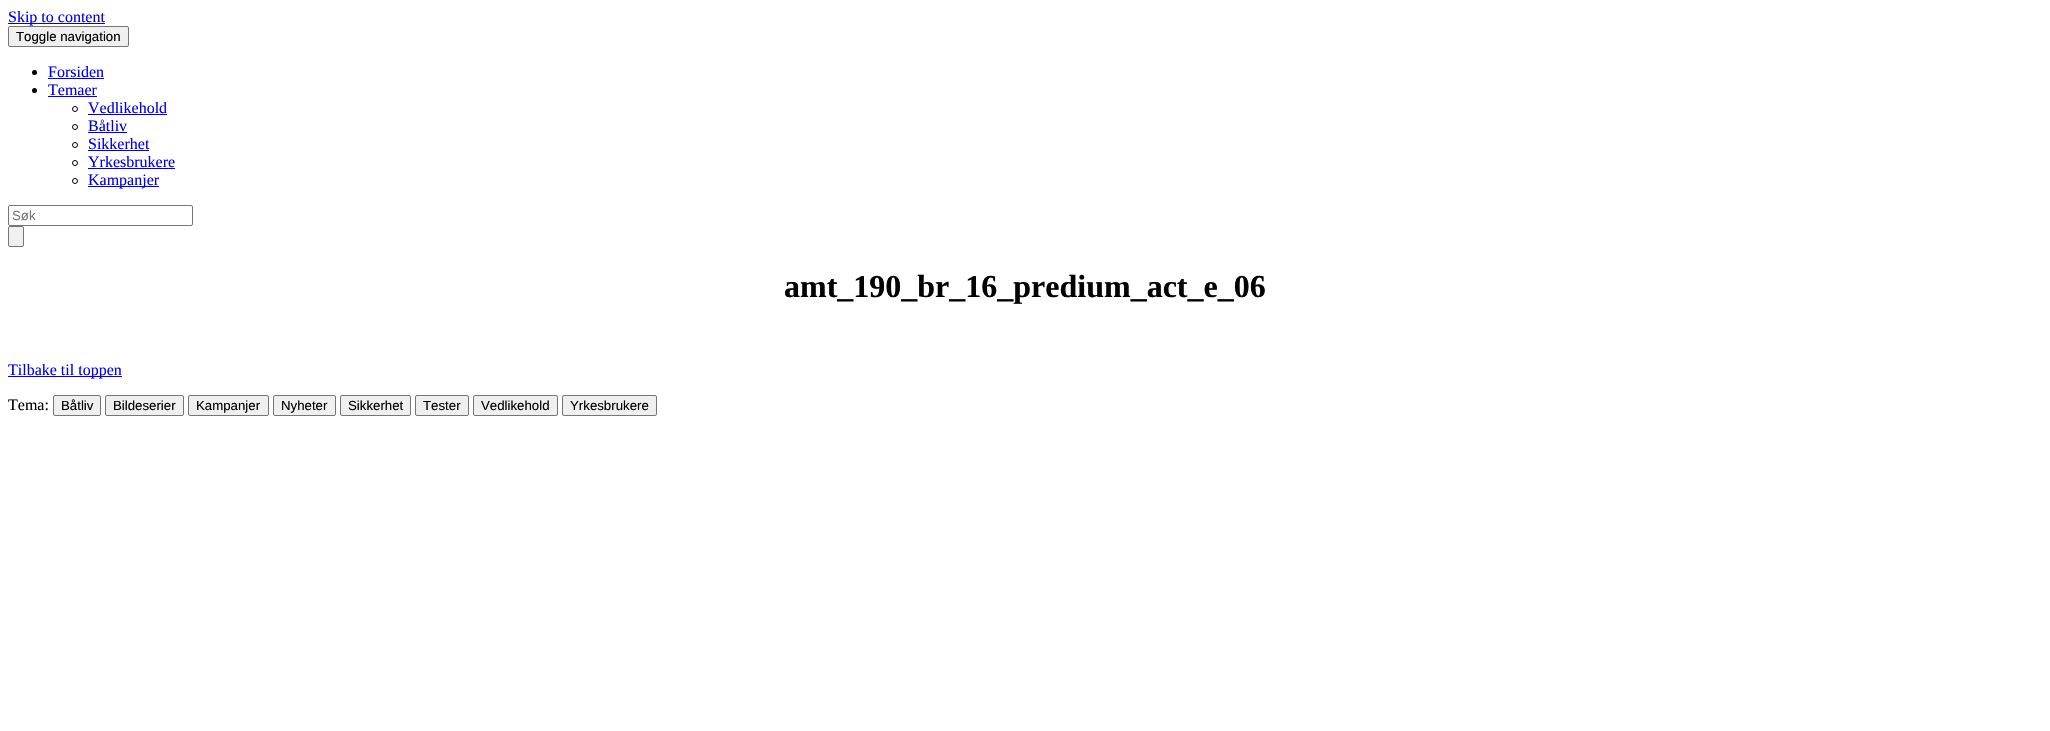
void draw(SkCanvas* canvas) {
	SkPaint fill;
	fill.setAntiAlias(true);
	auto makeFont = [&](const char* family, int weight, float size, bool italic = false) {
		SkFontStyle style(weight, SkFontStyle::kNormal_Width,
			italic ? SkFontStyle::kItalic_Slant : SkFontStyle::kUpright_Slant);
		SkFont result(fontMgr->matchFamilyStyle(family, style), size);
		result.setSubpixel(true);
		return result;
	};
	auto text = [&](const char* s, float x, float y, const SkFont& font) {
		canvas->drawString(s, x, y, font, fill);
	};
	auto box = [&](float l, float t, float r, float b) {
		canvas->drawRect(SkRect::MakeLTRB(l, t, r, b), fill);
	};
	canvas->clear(0xFFFFFFFF);
	fill.setColor(0xFF0000EE);
	box(8, 23, 105, 24);
	fill.setColor(0xFFEFEFEF);
	canvas->drawRoundRect(SkRect::MakeLTRB(8.5f, 26.5f, 128.5f, 46.5f), 1.5f, 1.5f, fill);
	fill.setStyle(SkPaint::kStroke_Style);
	fill.setStrokeWidth(1);
	fill.setColor(0xFF767676);
	canvas->drawRoundRect(SkRect::MakeLTRB(8.5f, 26.5f, 128.5f, 46.5f), 1.5f, 1.5f, fill);
	fill.setStyle(SkPaint::kFill_Style);
	fill.setColor(0xFF000000);
	canvas->drawCircle(34.5f, 72.5f, 2.5f, fill);
	fill.setColor(0xFF0000EE);
	box(48, 78, 104, 79);
	fill.setColor(0xFF000000);
	canvas->drawCircle(34.5f, 90.5f, 2.5f, fill);
	fill.setColor(0xFF0000EE);
	box(48, 96, 97, 97);
	fill.setStyle(SkPaint::kStroke_Style);
	fill.setColor(0xFF000000);
	canvas->drawCircle(75, 109, 2.5f, fill);
	fill.setStyle(SkPaint::kFill_Style);
	fill.setColor(0xFF0000EE);
	box(88, 114, 167, 115);
	fill.setStyle(SkPaint::kStroke_Style);
	fill.setColor(0xFF000000);
	canvas->drawCircle(75, 127, 2.5f, fill);
	fill.setStyle(SkPaint::kFill_Style);
	fill.setColor(0xFF0000EE);
	box(88, 132, 127, 133);
	fill.setStyle(SkPaint::kStroke_Style);
	fill.setColor(0xFF000000);
	canvas->drawCircle(75, 145, 2.5f, fill);
	fill.setStyle(SkPaint::kFill_Style);
	fill.setColor(0xFF0000EE);
	box(88, 150, 149, 151);
	fill.setStyle(SkPaint::kStroke_Style);
	fill.setColor(0xFF000000);
	canvas->drawCircle(75, 163, 2.5f, fill);
	fill.setStyle(SkPaint::kFill_Style);
	fill.setColor(0xFF0000EE);
	box(88, 168, 175, 169);
	fill.setStyle(SkPaint::kStroke_Style);
	fill.setColor(0xFF000000);
	canvas->drawCircle(75, 181, 2.5f, fill);
	fill.setStyle(SkPaint::kFill_Style);
	fill.setColor(0xFF0000EE);
	box(88, 186, 159, 187);
	fill.setStyle(SkPaint::kStroke_Style);
	fill.setColor(0xFF767676);
	canvas->drawRoundRect(SkRect::MakeLTRB(8.5f, 205.5f, 192.5f, 225.5f), 1.5f, 1.5f, fill);
	fill.setStyle(SkPaint::kFill_Style);
	fill.setColor(0xFFEFEFEF);
	canvas->drawRoundRect(SkRect::MakeLTRB(8.5f, 226.5f, 23.5f, 246.5f), 1.5f, 1.5f, fill);
	fill.setStyle(SkPaint::kStroke_Style);
	fill.setColor(0xFF767676);
	canvas->drawRoundRect(SkRect::MakeLTRB(8.5f, 226.5f, 23.5f, 246.5f), 1.5f, 1.5f, fill);
	fill.setStyle(SkPaint::kFill_Style);
	fill.setColor(0xFF0000EE);
	box(8, 376, 122, 377);
	fill.setColor(0xFFEFEFEF);
	canvas->drawRoundRect(SkRect::MakeLTRB(53.5f, 395.5f, 100.5f, 415.5f), 1.5f, 1.5f, fill);
	fill.setStyle(SkPaint::kStroke_Style);
	fill.setColor(0xFF767676);
	canvas->drawRoundRect(SkRect::MakeLTRB(53.5f, 395.5f, 100.5f, 415.5f), 1.5f, 1.5f, fill);
	fill.setStyle(SkPaint::kFill_Style);
	fill.setColor(0xFFEFEFEF);
	canvas->drawRoundRect(SkRect::MakeLTRB(105.5f, 395.5f, 183.5f, 415.5f), 1.5f, 1.5f, fill);
	fill.setStyle(SkPaint::kStroke_Style);
	fill.setColor(0xFF767676);
	canvas->drawRoundRect(SkRect::MakeLTRB(105.5f, 395.5f, 183.5f, 415.5f), 1.5f, 1.5f, fill);
	fill.setStyle(SkPaint::kFill_Style);
	fill.setColor(0xFFEFEFEF);
	canvas->drawRoundRect(SkRect::MakeLTRB(188.5f, 395.5f, 268.5f, 415.5f), 1.5f, 1.5f, fill);
	fill.setStyle(SkPaint::kStroke_Style);
	fill.setColor(0xFF767676);
	canvas->drawRoundRect(SkRect::MakeLTRB(188.5f, 395.5f, 268.5f, 415.5f), 1.5f, 1.5f, fill);
	fill.setStyle(SkPaint::kFill_Style);
	fill.setColor(0xFFEFEFEF);
	canvas->drawRoundRect(SkRect::MakeLTRB(273.5f, 395.5f, 335.5f, 415.5f), 1.5f, 1.5f, fill);
	fill.setStyle(SkPaint::kStroke_Style);
	fill.setColor(0xFF767676);
	canvas->drawRoundRect(SkRect::MakeLTRB(273.5f, 395.5f, 335.5f, 415.5f), 1.5f, 1.5f, fill);
	fill.setStyle(SkPaint::kFill_Style);
	fill.setColor(0xFFEFEFEF);
	canvas->drawRoundRect(SkRect::MakeLTRB(340.5f, 395.5f, 410.5f, 415.5f), 1.5f, 1.5f, fill);
	fill.setStyle(SkPaint::kStroke_Style);
	fill.setColor(0xFF767676);
	canvas->drawRoundRect(SkRect::MakeLTRB(340.5f, 395.5f, 410.5f, 415.5f), 1.5f, 1.5f, fill);
	fill.setStyle(SkPaint::kFill_Style);
	fill.setColor(0xFFEFEFEF);
	canvas->drawRoundRect(SkRect::MakeLTRB(415.5f, 395.5f, 468.5f, 415.5f), 1.5f, 1.5f, fill);
	fill.setStyle(SkPaint::kStroke_Style);
	fill.setColor(0xFF767676);
	canvas->drawRoundRect(SkRect::MakeLTRB(415.5f, 395.5f, 468.5f, 415.5f), 1.5f, 1.5f, fill);
	fill.setStyle(SkPaint::kFill_Style);
	fill.setColor(0xFFEFEFEF);
	canvas->drawRoundRect(SkRect::MakeLTRB(473.5f, 395.5f, 557.5f, 415.5f), 1.5f, 1.5f, fill);
	fill.setStyle(SkPaint::kStroke_Style);
	fill.setColor(0xFF767676);
	canvas->drawRoundRect(SkRect::MakeLTRB(473.5f, 395.5f, 557.5f, 415.5f), 1.5f, 1.5f, fill);
	fill.setStyle(SkPaint::kFill_Style);
	fill.setColor(0xFFEFEFEF);
	canvas->drawRoundRect(SkRect::MakeLTRB(562.5f, 395.5f, 656.5f, 415.5f), 1.5f, 1.5f, fill);
	fill.setStyle(SkPaint::kStroke_Style);
	fill.setColor(0xFF767676);
	canvas->drawRoundRect(SkRect::MakeLTRB(562.5f, 395.5f, 656.5f, 415.5f), 1.5f, 1.5f, fill);
	auto font1 = makeFont("Liberation Serif", 400, 16);
	fill.setStyle(SkPaint::kFill_Style);
	fill.setColor(0xFF0000EE);
	text("Skip to content", 8, 22, font1);
	auto font2 = makeFont("Liberation Sans", 400, 13.25f);
	fill.setColor(0xFF000000);
	text("Toggle navigation", 16, 41, font2);
	fill.setColor(0xFF0000EE);
	text("Forsiden", 48, 77, font1);
	text("Temaer", 48, 95, font1);
	text("Vedlikehold", 88, 113, font1);
	text("Båtliv", 88, 131, font1);
	text("Sikkerhet", 88, 149, font1);
	text("Yrkesbrukere", 88, 167, font1);
	text("Kampanjer", 88, 185, font1);
	fill.setColor(0xFF757575);
	text("Søk", 12, 220, font2);
	auto font3 = makeFont("Liberation Serif", 700, 32);
	fill.setColor(0xFF000000);
	text("amt_190_br_16_predium_act_e_06", 784, 297, font3);
	fill.setColor(0xFF0000EE);
	text("Tilbake til toppen", 8, 375, font1);
	fill.setColor(0xFF000000);
	text("Tema:", 8, 410, font1);
	text("Båtliv", 61, 410, font2);
	text("Bildeserier", 113, 410, font2);
	text("Kampanjer", 196, 410, font2);
	text("Nyheter", 281, 410, font2);
	text("Sikkerhet", 348, 410, font2);
	text("Tester", 423, 410, font2);
	text("Vedlikehold", 481, 410, font2);
	text("Yrkesbrukere", 570, 410, font2);
}
